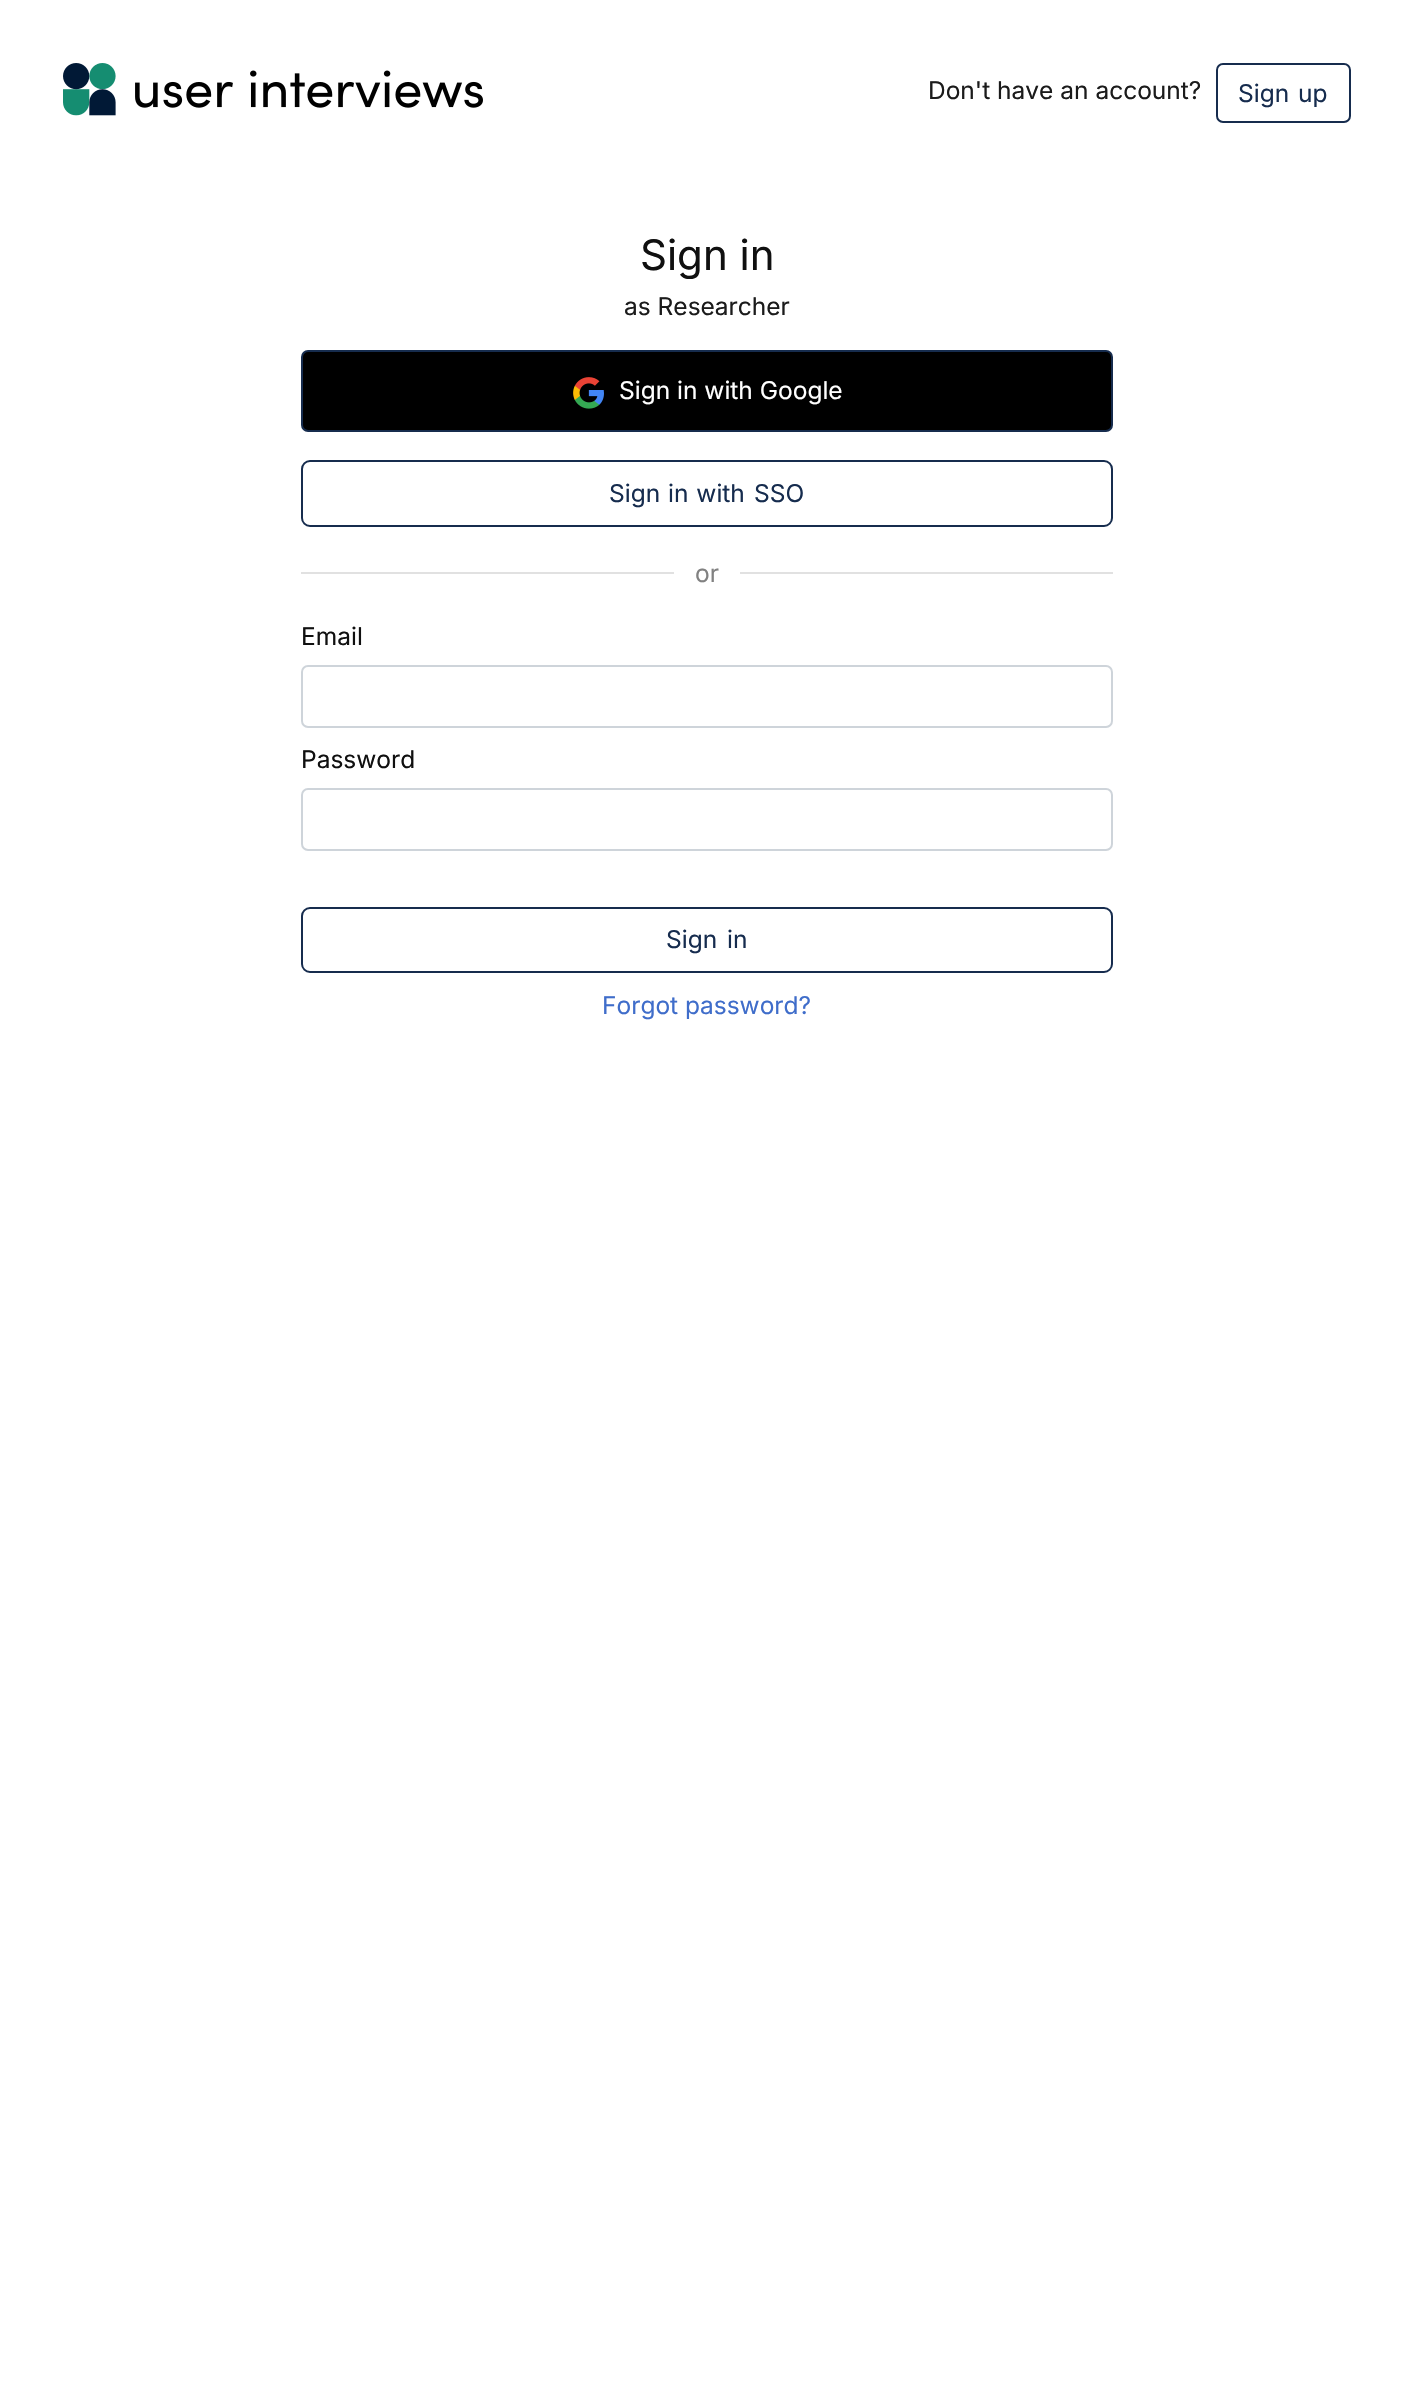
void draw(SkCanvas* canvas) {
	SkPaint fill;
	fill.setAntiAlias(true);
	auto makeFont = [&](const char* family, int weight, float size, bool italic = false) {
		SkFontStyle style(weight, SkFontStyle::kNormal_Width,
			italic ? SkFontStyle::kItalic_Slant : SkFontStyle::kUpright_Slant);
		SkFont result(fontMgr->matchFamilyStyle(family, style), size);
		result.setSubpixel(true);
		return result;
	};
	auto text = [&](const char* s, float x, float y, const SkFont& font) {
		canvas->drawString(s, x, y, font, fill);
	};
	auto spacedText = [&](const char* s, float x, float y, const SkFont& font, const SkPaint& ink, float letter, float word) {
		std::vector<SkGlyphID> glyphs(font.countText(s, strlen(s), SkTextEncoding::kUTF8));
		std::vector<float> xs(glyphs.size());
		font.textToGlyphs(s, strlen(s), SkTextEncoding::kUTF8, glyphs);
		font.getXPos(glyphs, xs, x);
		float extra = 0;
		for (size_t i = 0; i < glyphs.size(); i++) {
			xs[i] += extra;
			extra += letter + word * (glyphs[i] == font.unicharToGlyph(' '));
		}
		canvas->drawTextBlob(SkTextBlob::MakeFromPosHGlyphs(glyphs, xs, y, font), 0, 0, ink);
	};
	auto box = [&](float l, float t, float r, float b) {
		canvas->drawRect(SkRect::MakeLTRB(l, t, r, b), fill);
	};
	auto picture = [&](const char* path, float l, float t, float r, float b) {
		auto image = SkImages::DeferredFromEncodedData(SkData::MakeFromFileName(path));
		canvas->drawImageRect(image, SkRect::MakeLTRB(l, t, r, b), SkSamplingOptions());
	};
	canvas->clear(0xFFFFFFFF);
	picture("image0.png", 63, 63, 483, 116);
	fill.setStyle(SkPaint::kStroke_Style);
	fill.setStrokeWidth(2);
	fill.setColor(0xFF162C4E);
	canvas->drawRoundRect(SkRect::MakeLTRB(1217, 64, 1350, 122), 6, 6, fill);
	fill.setStyle(SkPaint::kFill_Style);
	fill.setColor(0xFF000000);
	canvas->drawRoundRect(SkRect::MakeLTRB(302, 351, 1112, 431), 6, 6, fill);
	fill.setStyle(SkPaint::kStroke_Style);
	fill.setColor(0xFF162C4E);
	canvas->drawRoundRect(SkRect::MakeLTRB(302, 351, 1112, 431), 6, 6, fill);
	picture("image1.png", 573, 377, 604, 409);
	canvas->drawRoundRect(SkRect::MakeLTRB(302, 461, 1112, 526), 8, 8, fill);
	fill.setStyle(SkPaint::kFill_Style);
	fill.setColor(0xFFE1E1E1);
	box(301, 572, 674, 574);
	box(740, 572, 1113, 574);
	fill.setStyle(SkPaint::kStroke_Style);
	fill.setColor(0xFFCED4DA);
	canvas->drawRoundRect(SkRect::MakeLTRB(302, 666, 1112, 727), 6, 6, fill);
	canvas->drawRoundRect(SkRect::MakeLTRB(302, 789, 1112, 850), 6, 6, fill);
	fill.setColor(0xFF162C4E);
	canvas->drawRoundRect(SkRect::MakeLTRB(302, 908, 1112, 972), 8, 8, fill);
	auto font1 = makeFont("Inter", 400, 24.5f);
	fill.setStyle(SkPaint::kFill_Style);
	fill.setColor(0xFF1B1B1B);
	text("Don't have an account?", 928, 99, font1);
	fill.setColor(0xFF162C4E);
	spacedText("Sign up", 1238, 102, font1, fill, 0, 2);
	auto font2 = makeFont("Inter", 400, 42);
	fill.setColor(0xFF101010);
	text("Sign in", 640, 270, font2);
	fill.setColor(0xFF1B1B1B);
	text("as Researcher", 624, 315, font1);
	fill.setColor(0xFFFFFFFF);
	text("Sign in with Google", 619, 399, font1);
	fill.setColor(0xFF162C4E);
	spacedText("Sign in with", 609, 502, font1, fill, 0, 1);
	text("SSO", 754, 502, font1);
	fill.setColor(0xFF818181);
	text("or", 695, 582, font1);
	fill.setColor(0xFF101010);
	text("Email", 301, 645, font1);
	text("Password", 301, 768, font1);
	fill.setColor(0xFF162C4E);
	spacedText("Sign in", 666, 948, font1, fill, 0, 3);
	fill.setColor(0xFF3F6DCA);
	text("Forgot password?", 602, 1014, font1);
}
